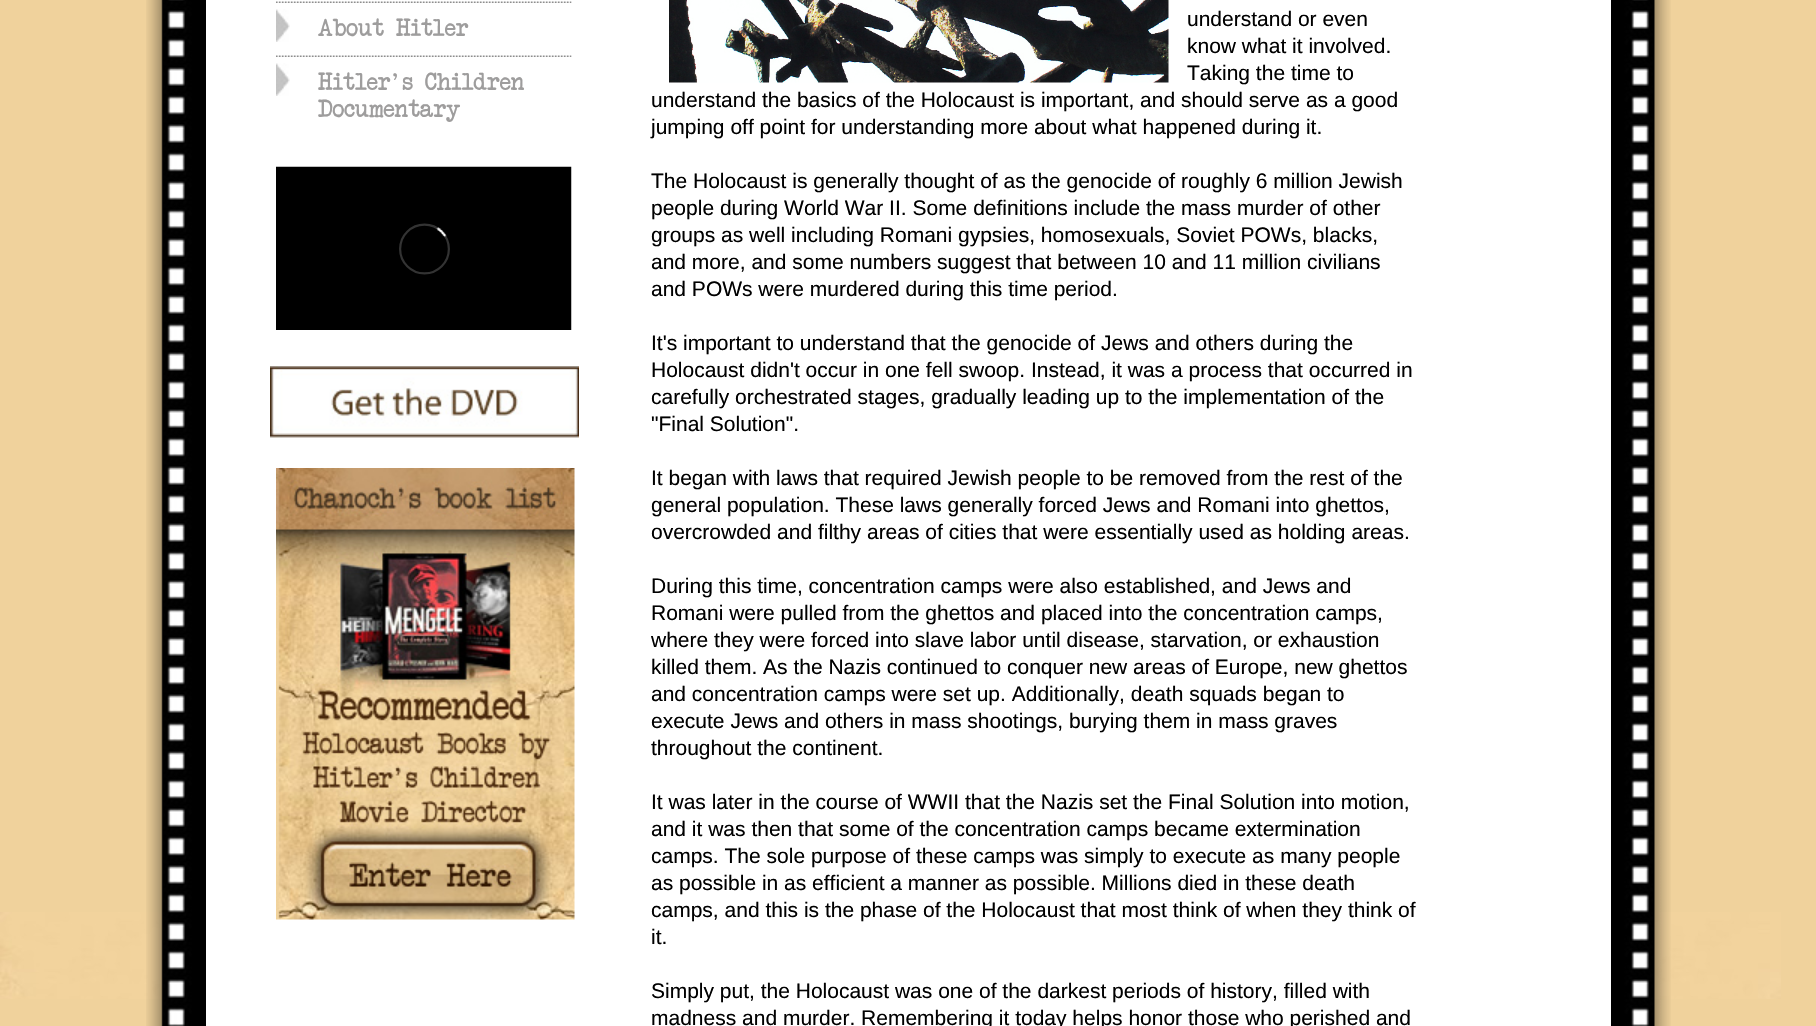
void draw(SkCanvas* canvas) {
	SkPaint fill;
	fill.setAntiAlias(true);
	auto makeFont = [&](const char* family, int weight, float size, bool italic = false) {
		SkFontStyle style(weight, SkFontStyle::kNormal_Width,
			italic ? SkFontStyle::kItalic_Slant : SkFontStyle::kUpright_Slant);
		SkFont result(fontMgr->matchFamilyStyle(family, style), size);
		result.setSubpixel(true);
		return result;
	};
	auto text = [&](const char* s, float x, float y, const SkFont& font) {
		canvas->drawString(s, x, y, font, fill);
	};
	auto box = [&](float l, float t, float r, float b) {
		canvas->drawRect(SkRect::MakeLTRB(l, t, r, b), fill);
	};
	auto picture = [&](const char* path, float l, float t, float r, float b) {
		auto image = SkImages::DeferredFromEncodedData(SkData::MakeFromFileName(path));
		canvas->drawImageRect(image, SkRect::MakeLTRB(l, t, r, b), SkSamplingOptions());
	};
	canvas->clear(0xFFF0D29C);
	picture("image0.png", 0, 912, 1781, 999);
	picture("image1.png", 146, 0, 206, 1026);
	picture("image2.png", 1611, 0, 1671, 1026);
	fill.setColor(0xFFFFFFFF);
	box(206, 0, 1611, 1026);
	picture("image3.png", 276, 1, 572, 3);
	picture("image4.png", 276, 9, 290, 42);
	picture("image3.png", 276, 55, 572, 57);
	picture("image4.png", 276, 63, 290, 96);
	picture("image5.png", 669, 0, 1169, 83);
	picture("image6.png", 276, 166, 572, 330);
	picture("image7.png", 270, 366, 579, 438);
	picture("image8.png", 276, 468, 575, 920);
	auto font1 = makeFont("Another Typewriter", 400, 24);
	fill.setColor(0xFF9E9D9D);
	text("About Hitler", 318, 36, font1);
	text("Hitler's Children", 318, 90, font1);
	text("Documentary", 318, 117, font1);
	auto font2 = makeFont("Liberation Sans", 400, 21);
	fill.setColor(0xFF000000);
	text("understand or even", 1187, 26, font2);
	text("know what it involved.", 1187, 53, font2);
	text("Taking the time to", 1187, 80, font2);
	text("understand the basics of the Holocaust is important, and should serve as a good", 651, 107, font2);
	text("jumping off point for understanding more about what happened during it.", 651, 134, font2);
	text("The Holocaust is generally thought of as the genocide of roughly 6 million Jewish", 651, 188, font2);
	text("people during World War II. Some definitions include the mass murder of other", 651, 215, font2);
	text("groups as well including Romani gypsies, homosexuals, Soviet POWs, blacks,", 651, 242, font2);
	text("and more, and some numbers suggest that between 10 and 11 million civilians", 651, 269, font2);
	text("and POWs were murdered during this time period.", 651, 296, font2);
	text("It's important to understand that the genocide of Jews and others during the", 651, 350, font2);
	text("Holocaust didn't occur in one fell swoop. Instead, it was a process that occurred in", 651, 377, font2);
	text("carefully orchestrated stages, gradually leading up to the implementation of the", 651, 404, font2);
	text("\"Final Solution\".", 651, 431, font2);
	text("It began with laws that required Jewish people to be removed from the rest of the", 651, 485, font2);
	text("general population. These laws generally forced Jews and Romani into ghettos,", 651, 512, font2);
	text("overcrowded and filthy areas of cities that were essentially used as holding areas.", 651, 539, font2);
	text("During this time, concentration camps were also established, and Jews and", 651, 593, font2);
	text("Romani were pulled from the ghettos and placed into the concentration camps,", 651, 620, font2);
	text("where they were forced into slave labor until disease, starvation, or exhaustion", 651, 647, font2);
	text("killed them. As the Nazis continued to conquer new areas of Europe, new ghettos", 651, 674, font2);
	text("and concentration camps were set up. Additionally, death squads began to", 651, 701, font2);
	text("execute Jews and others in mass shootings, burying them in mass graves", 651, 728, font2);
	text("throughout the continent.", 651, 755, font2);
	text("It was later in the course of WWII that the Nazis set the Final Solution into motion,", 651, 809, font2);
	text("and it was then that some of the concentration camps became extermination", 651, 836, font2);
	text("camps. The sole purpose of these camps was simply to execute as many people", 651, 863, font2);
	text("as possible in as efficient a manner as possible. Millions died in these death", 651, 890, font2);
	text("camps, and this is the phase of the Holocaust that most think of when they think of", 651, 917, font2);
	text("it.", 651, 944, font2);
	text("Simply put, the Holocaust was one of the darkest periods of history, filled with", 651, 998, font2);
	text("madness and murder. Remembering it today helps honor those who perished and", 651, 1025, font2);
}
